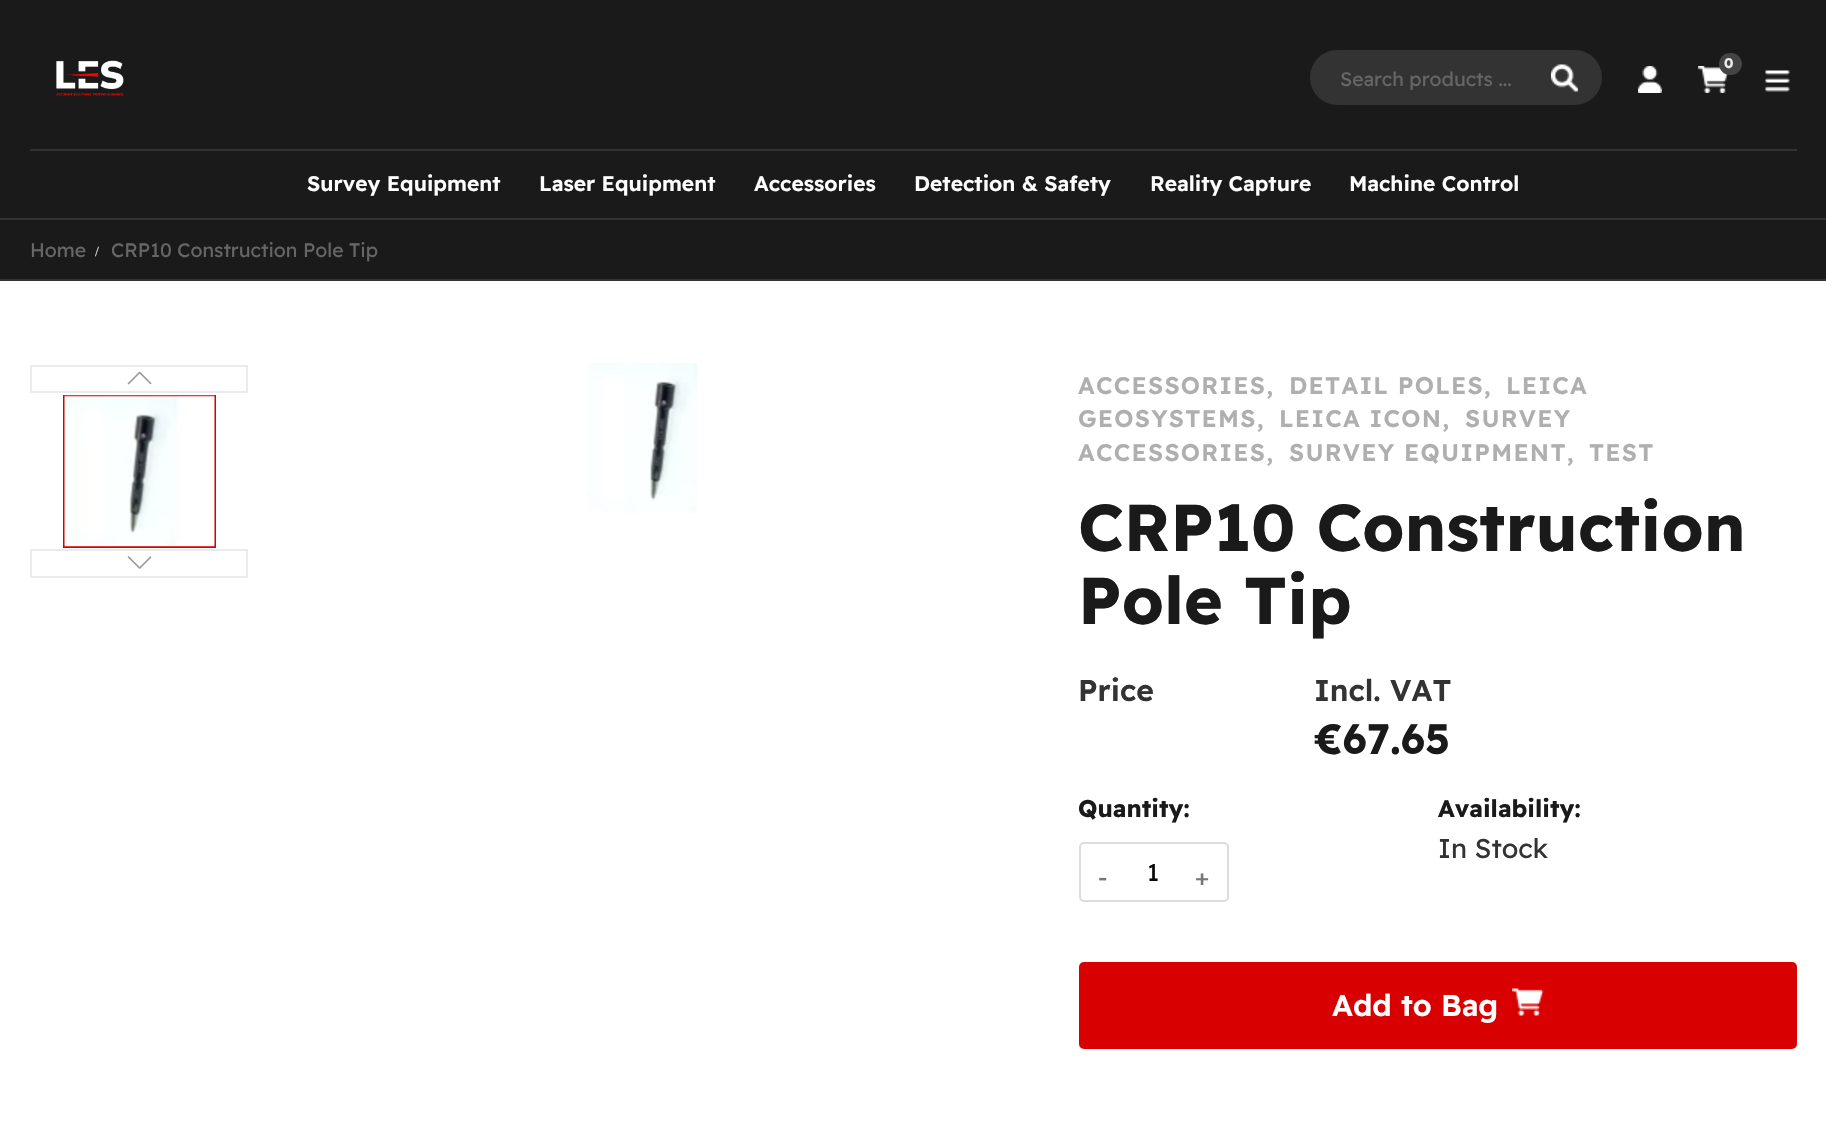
void draw(SkCanvas* canvas) {
	SkPaint fill;
	fill.setAntiAlias(true);
	auto makeFont = [&](const char* family, int weight, float size, bool italic = false) {
		SkFontStyle style(weight, SkFontStyle::kNormal_Width,
			italic ? SkFontStyle::kItalic_Slant : SkFontStyle::kUpright_Slant);
		SkFont result(fontMgr->matchFamilyStyle(family, style), size);
		result.setSubpixel(true);
		return result;
	};
	auto text = [&](const char* s, float x, float y, const SkFont& font) {
		canvas->drawString(s, x, y, font, fill);
	};
	auto spacedText = [&](const char* s, float x, float y, const SkFont& font, const SkPaint& ink, float letter, float word) {
		std::vector<SkGlyphID> glyphs(font.countText(s, strlen(s), SkTextEncoding::kUTF8));
		std::vector<float> xs(glyphs.size());
		font.textToGlyphs(s, strlen(s), SkTextEncoding::kUTF8, glyphs);
		font.getXPos(glyphs, xs, x);
		float extra = 0;
		for (size_t i = 0; i < glyphs.size(); i++) {
			xs[i] += extra;
			extra += letter + word * (glyphs[i] == font.unicharToGlyph(' '));
		}
		canvas->drawTextBlob(SkTextBlob::MakeFromPosHGlyphs(glyphs, xs, y, font), 0, 0, ink);
	};
	auto box = [&](float l, float t, float r, float b) {
		canvas->drawRect(SkRect::MakeLTRB(l, t, r, b), fill);
	};
	auto roundBox = [&](float l, float t, float r, float b, float radius) {
		canvas->drawRoundRect(SkRect::MakeLTRB(l, t, r, b), radius, radius, fill);
	};
	auto picture = [&](const char* path, float l, float t, float r, float b) {
		auto image = SkImages::DeferredFromEncodedData(SkData::MakeFromFileName(path));
		canvas->drawImageRect(image, SkRect::MakeLTRB(l, t, r, b), SkSamplingOptions());
	};
	canvas->clear(0xFFFFFFFF);
	fill.setColor(0xFF1A1A1A);
	box(0, 0, 1826, 218);
	picture("image0.png", 56, 60, 124, 96);
	picture("image1.png", 1698, 66, 1729, 93);
	fill.setColor(0xFF444444);
	roundBox(1719, 53, 1742, 75, 11);
	fill.setColor(0xFF333333);
	roundBox(1310, 50, 1602, 105, 27.5f);
	picture("image2.png", 1551, 64, 1578, 92);
	picture("image3.png", 1638, 66, 1662, 93);
	picture("image4.png", 1765, 70, 1790, 92);
	box(30, 149, 1797, 151);
	fill.setColor(0xFF1A1A1A);
	box(0, 220, 1826, 279);
	fill.setColor(0xFF333333);
	box(0, 218, 1826, 220);
	box(0, 279, 1826, 281);
	fill.setStyle(SkPaint::kStroke_Style);
	fill.setStrokeWidth(2);
	fill.setColor(0xFFEBEBEB);
	canvas->drawRect(SkRect::MakeLTRB(31, 366, 247, 392), fill);
	picture("image5.png", 127, 371, 152, 385);
	fill.setColor(0xFFD80000);
	canvas->drawRect(SkRect::MakeLTRB(64, 396, 215, 547), fill);
	picture("image6.png", 64, 395, 215, 547);
	fill.setColor(0xFFEBEBEB);
	canvas->drawRect(SkRect::MakeLTRB(31, 550, 247, 577), fill);
	picture("image7.png", 127, 556, 152, 569);
	picture("image8.png", 586, 363, 698, 513);
	fill.setColor(0xFFDDDDDD);
	canvas->drawRoundRect(SkRect::MakeLTRB(1080, 843, 1228, 901), 4, 4, fill);
	fill.setStyle(SkPaint::kFill_Style);
	fill.setColor(0xFFD80000);
	roundBox(1079, 962, 1797, 1049, 5);
	picture("image9.png", 1512, 988, 1544, 1016);
	auto font1 = makeFont("Readex Pro", 700, 14);
	fill.setColor(0xFFEBEBEB);
	spacedText("0", 1724, 68, font1, fill, 1.25f, 0);
	canvas->save();
	canvas->clipRect(SkRect::MakeLTRB(1340, 66, 1550, 90));
	auto font2 = makeFont("Readex Pro", 400, 19.5f);
	fill.setColor(0xFF666666);
	text("Search products ...", 1340, 86, font2);
	canvas->restore();
	auto font3 = makeFont("Readex Pro", 600, 21);
	fill.setColor(0xFFFFFFFF);
	text("Survey Equipment", 307, 191, font3);
	text("Laser Equipment", 539, 191, font3);
	text("Accessories", 754, 191, font3);
	text("Detection & Safety", 914, 191, font3);
	text("Reality Capture", 1150, 191, font3);
	text("Machine Control", 1349, 191, font3);
	fill.setColor(0xFF666666);
	text("Home", 30, 257, font2);
	auto font4 = makeFont("Liberation Serif", 400, 14);
	fill.setColor(0xFFEBEBEB);
	text("/", 95, 256, font4);
	fill.setColor(0xFF666666);
	text("CRP10 Construction Pole Tip", 111, 257, font2);
	auto font5 = makeFont("Readex Pro", 600, 24);
	fill.setColor(0xFFAFAFAF);
	spacedText("ACCESSORIES,", 1078, 394, font5, fill, 1.25f, 0);
	spacedText("DETAIL POLES,", 1289, 394, font5, fill, 1.25f, 0);
	spacedText("LEICA", 1506, 394, font5, fill, 1.25f, 0);
	spacedText("GEOSYSTEMS,", 1078, 427, font5, fill, 1.25f, 0);
	spacedText("LEICA ICON,", 1279, 427, font5, fill, 1.25f, 0);
	spacedText("SURVEY", 1465, 427, font5, fill, 1.25f, 0);
	spacedText("ACCESSORIES,", 1078, 461, font5, fill, 1.25f, 0);
	spacedText("SURVEY EQUIPMENT,", 1289, 461, font5, fill, 1.25f, 0);
	spacedText("TEST", 1589, 461, font5, fill, 1.25f, 0);
	auto font6 = makeFont("Readex Pro", 700, 66);
	fill.setColor(0xFF1A1A1A);
	text("CRP10 Construction", 1078, 551, font6);
	text("Pole Tip", 1078, 624, font6);
	auto font7 = makeFont("Readex Pro", 600, 30);
	fill.setColor(0xFF333333);
	text("Price", 1078, 701, font7);
	text("Incl. VAT", 1314, 701, font7);
	auto font8 = makeFont("Readex Pro", 700, 42);
	fill.setColor(0xFF1A1A1A);
	text("€67.65", 1314, 754, font8);
	auto font9 = makeFont("Readex Pro", 700, 24);
	text("Quantity:", 1078, 817, font9);
	auto font10 = makeFont("Readex Pro", 400, 24);
	fill.setColor(0xFF777777);
	text("-", 1098, 886, font10);
	fill.setColor(0xFF0A0A0A);
	text("1", 1147, 881, font10);
	fill.setColor(0xFF777777);
	text("+", 1195, 886, font10);
	fill.setColor(0xFF1A1A1A);
	text("Availability:", 1438, 817, font9);
	auto font11 = makeFont("Readex Pro", 400, 27);
	fill.setColor(0xFF333333);
	text("In Stock", 1438, 858, font11);
	fill.setColor(0xFFFFFFFF);
	text("Add to Bag", 1332, 1016, font7);
}
